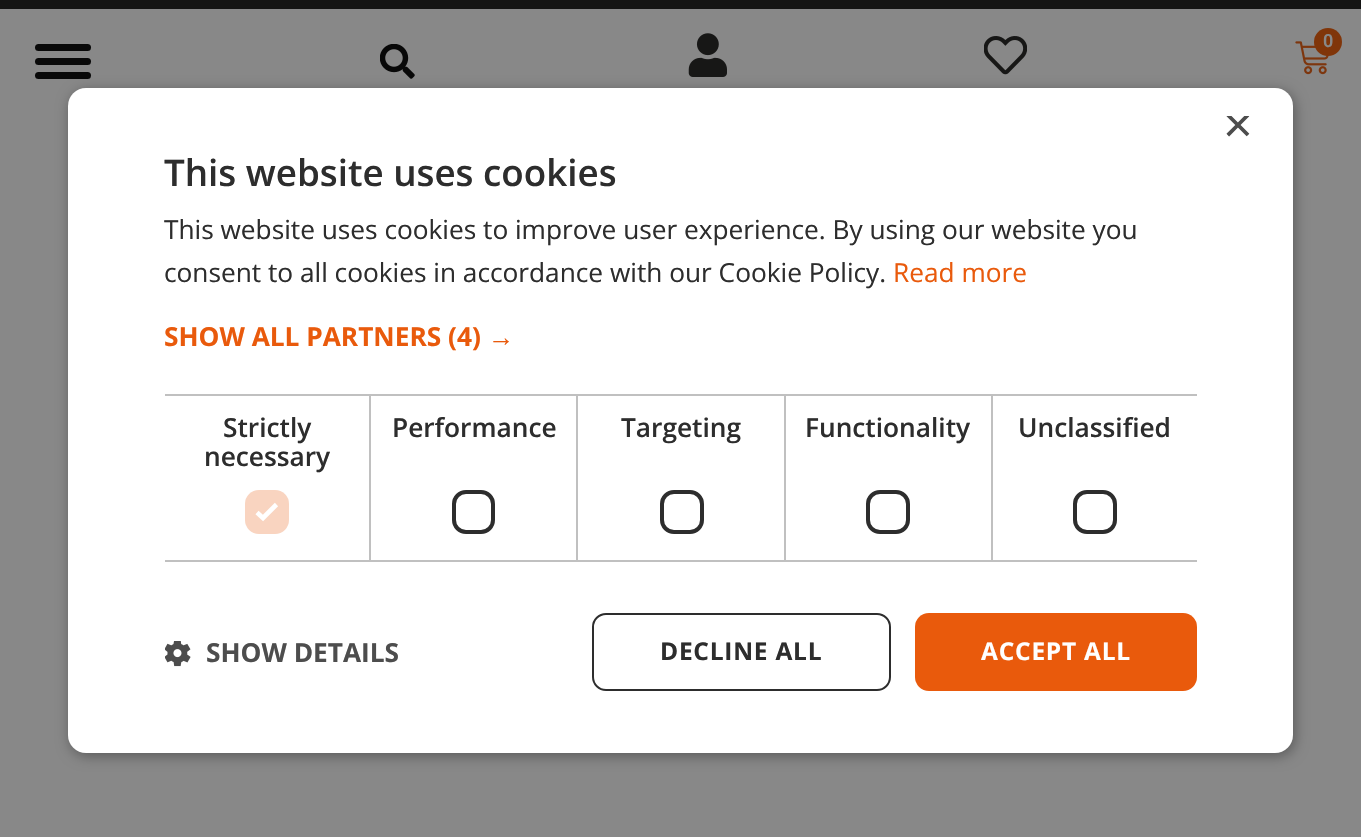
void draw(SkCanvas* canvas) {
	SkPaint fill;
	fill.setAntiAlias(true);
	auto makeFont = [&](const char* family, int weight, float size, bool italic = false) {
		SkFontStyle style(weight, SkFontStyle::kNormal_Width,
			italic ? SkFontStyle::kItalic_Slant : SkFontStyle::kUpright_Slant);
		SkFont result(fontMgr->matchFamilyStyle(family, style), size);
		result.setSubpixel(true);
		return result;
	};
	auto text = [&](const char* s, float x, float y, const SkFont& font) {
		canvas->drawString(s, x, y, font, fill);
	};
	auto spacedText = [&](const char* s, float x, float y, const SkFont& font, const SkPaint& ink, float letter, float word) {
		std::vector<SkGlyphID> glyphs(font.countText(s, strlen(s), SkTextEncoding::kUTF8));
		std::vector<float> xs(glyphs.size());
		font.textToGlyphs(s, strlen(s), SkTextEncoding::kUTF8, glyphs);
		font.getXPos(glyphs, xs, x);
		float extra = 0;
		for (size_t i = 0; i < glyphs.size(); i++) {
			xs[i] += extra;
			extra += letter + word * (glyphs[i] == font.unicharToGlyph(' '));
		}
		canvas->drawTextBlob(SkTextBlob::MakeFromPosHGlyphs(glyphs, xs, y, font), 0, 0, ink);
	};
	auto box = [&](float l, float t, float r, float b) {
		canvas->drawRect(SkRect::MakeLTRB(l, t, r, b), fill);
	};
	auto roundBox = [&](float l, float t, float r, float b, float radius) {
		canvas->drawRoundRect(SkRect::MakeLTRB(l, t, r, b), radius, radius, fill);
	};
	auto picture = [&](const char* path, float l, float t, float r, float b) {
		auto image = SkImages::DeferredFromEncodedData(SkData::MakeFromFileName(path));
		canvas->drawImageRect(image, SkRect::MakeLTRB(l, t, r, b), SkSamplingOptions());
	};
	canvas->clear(0xFF888888);
	fill.setColor(0xFF141413);
	box(0, 0, 1361, 9);
	fill.setColor(0xFF090909);
	roundBox(35, 44, 91, 51, 3.5f);
	roundBox(35, 58, 91, 65, 3.5f);
	roundBox(35, 72, 91, 79, 3.5f);
	picture("image0.png", 380, 44, 415, 79);
	picture("image1.png", 688, 33, 727, 77);
	picture("image2.png", 984, 36, 1027, 75);
	picture("image3.png", 1295, 41, 1329, 75);
	fill.setColor(0xFF803509);
	canvas->drawCircle(1328, 42, 14, fill);
	fill.setColor(0x59000000);
	fill.setMaskFilter(SkMaskFilter::MakeBlur(kNormal_SkBlurStyle, 7));
	canvas->drawRoundRect(SkRect::MakeLTRB(70, 91, 1295, 756), 18, 18, fill);
	fill.setMaskFilter(nullptr);
	fill.setColor(0xFFFFFFFF);
	roundBox(68, 88, 1293, 753, 18);
	fill.setColor(0xFFC0C0C0);
	box(165, 394, 992, 396);
	box(369, 394, 371, 562);
	box(165, 560, 371, 562);
	fill.setColor(0xFFF9D4C0);
	roundBox(245, 490, 289, 534, 14);
	fill.setStyle(SkPaint::kStroke_Style);
	fill.setStrokeWidth(4.6f);
	fill.setColor(0xFFFFFFFF);
	canvas->drawPath(SkPathBuilder().moveTo(257, 512.5f).lineTo(263, 518).lineTo(276.5f, 504.5f).detach(), fill);
	fill.setStyle(SkPaint::kFill_Style);
	fill.setColor(0xFFC0C0C0);
	box(576, 394, 578, 562);
	box(371, 560, 578, 562);
	fill.setStyle(SkPaint::kStroke_Style);
	fill.setStrokeWidth(4);
	fill.setColor(0xFF2D2D2D);
	canvas->drawRoundRect(SkRect::MakeLTRB(454, 492, 493, 532), 12, 12, fill);
	fill.setStyle(SkPaint::kFill_Style);
	fill.setColor(0xFFC0C0C0);
	box(784, 394, 786, 562);
	box(578, 560, 786, 562);
	fill.setStyle(SkPaint::kStroke_Style);
	fill.setColor(0xFF2D2D2D);
	canvas->drawRoundRect(SkRect::MakeLTRB(662, 492, 702, 532), 12, 12, fill);
	fill.setStyle(SkPaint::kFill_Style);
	fill.setColor(0xFFC0C0C0);
	box(991, 394, 993, 562);
	box(786, 560, 1197, 562);
	fill.setStyle(SkPaint::kStroke_Style);
	fill.setColor(0xFF2D2D2D);
	canvas->drawRoundRect(SkRect::MakeLTRB(868, 492, 908, 532), 12, 12, fill);
	fill.setStyle(SkPaint::kFill_Style);
	fill.setColor(0xFFC0C0C0);
	box(992, 394, 1197, 396);
	fill.setStyle(SkPaint::kStroke_Style);
	fill.setColor(0xFF2D2D2D);
	canvas->drawRoundRect(SkRect::MakeLTRB(1075, 492, 1115, 532), 12, 12, fill);
	picture("image4.png", 165, 641, 191, 667);
	fill.setStrokeWidth(2);
	canvas->drawRoundRect(SkRect::MakeLTRB(593, 614, 890, 690), 13, 13, fill);
	fill.setStyle(SkPaint::kFill_Style);
	fill.setColor(0xFFE95A0C);
	roundBox(915, 613, 1197, 691, 14);
	auto font1 = makeFont("Roboto", 600, 18);
	fill.setColor(0xFF888888);
	text("0", 1323, 47, font1);
	canvas->save();
	canvas->clipRect(SkRect::MakeLTRB(1223, 116, 1250, 142));
	auto font2 = makeFont("Liberation Sans", 400, 51);
	fill.setColor(0xFF4D4D4D);
	text("×", 1223, 142, font2);
	canvas->restore();
	auto font3 = makeFont("Open Sans", 600, 36.75f);
	fill.setColor(0xFF2D2D2D);
	text("This website uses cookies", 164, 186, font3);
	auto font4 = makeFont("Open Sans", 400, 26.25f);
	text("This website uses cookies to improve user experience. By using our website you", 164, 239, font4);
	text("consent to all cookies in accordance with our Cookie Policy.", 164, 282, font4);
	fill.setColor(0xFFE95A0C);
	text("Read more", 893, 282, font4);
	auto font5 = makeFont("Open Sans", 700, 26.25f);
	text("SHOW ALL PARTNERS (4)", 164, 346, font5);
	auto font6 = makeFont("Liberation Sans", 700, 26.25f);
	text("→", 488, 346, font6);
	auto font7 = makeFont("Open Sans", 600, 26.25f);
	fill.setColor(0xFF2D2D2D);
	text("Strictly", 223, 437, font7);
	text("necessary", 204, 466, font7);
	text("Performance", 392, 437, font7);
	text("Targeting", 621, 437, font7);
	text("Functionality", 805, 437, font7);
	text("Unclassified", 1018, 437, font7);
	fill.setColor(0xFF4D4D4D);
	text("SHOW DETAILS", 206, 662, font5);
	auto font8 = makeFont("Open Sans", 700, 24.5f);
	fill.setColor(0xFF2D2D2D);
	spacedText("DECLINE ALL", 660, 660, font8, fill, 0.75f, 0);
	fill.setColor(0xFFFFFFFF);
	spacedText("ACCEPT ALL", 981, 660, font8, fill, 0.75f, 0);
}
